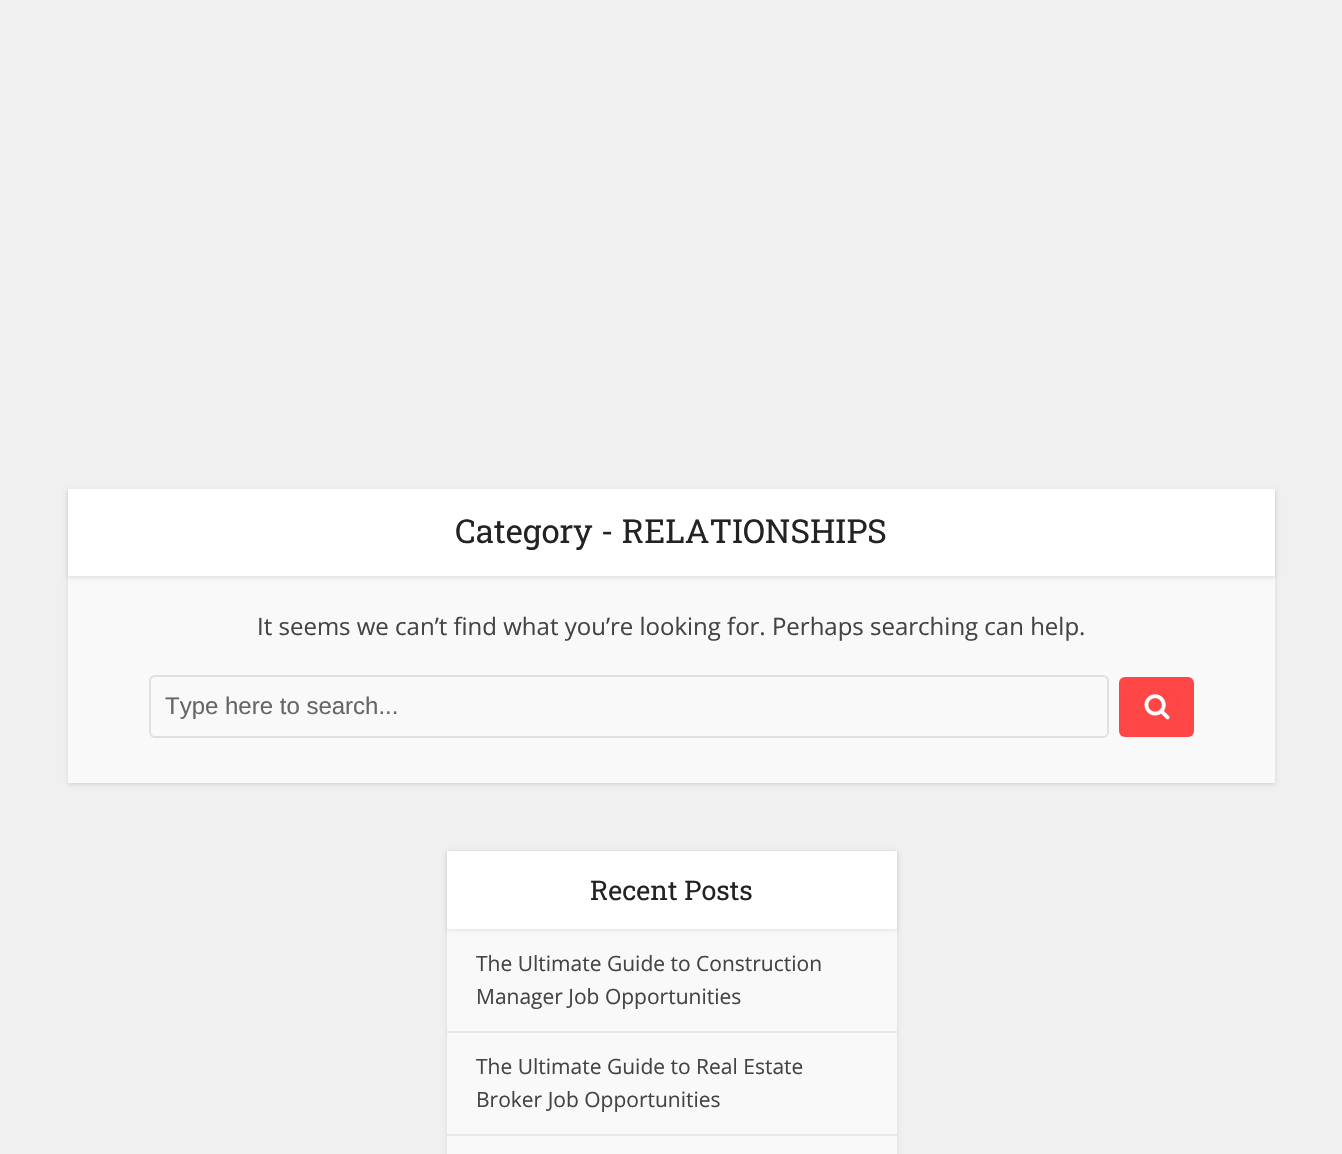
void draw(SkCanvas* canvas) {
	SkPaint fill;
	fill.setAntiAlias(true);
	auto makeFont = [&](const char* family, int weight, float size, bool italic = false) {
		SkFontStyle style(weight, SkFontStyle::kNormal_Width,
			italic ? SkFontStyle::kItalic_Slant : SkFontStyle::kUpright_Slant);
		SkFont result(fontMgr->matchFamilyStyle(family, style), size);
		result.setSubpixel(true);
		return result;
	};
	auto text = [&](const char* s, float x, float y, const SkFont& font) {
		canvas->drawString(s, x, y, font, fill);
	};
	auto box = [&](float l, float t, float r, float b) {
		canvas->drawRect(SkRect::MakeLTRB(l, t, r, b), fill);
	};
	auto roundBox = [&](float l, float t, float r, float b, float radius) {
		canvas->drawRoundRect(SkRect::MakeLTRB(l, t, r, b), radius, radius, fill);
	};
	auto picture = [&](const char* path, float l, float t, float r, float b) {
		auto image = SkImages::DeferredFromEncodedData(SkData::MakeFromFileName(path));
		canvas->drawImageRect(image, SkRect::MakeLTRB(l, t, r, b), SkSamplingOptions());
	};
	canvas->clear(0xFFF0F0F0);
	fill.setColor(0x1A000000);
	fill.setMaskFilter(SkMaskFilter::MakeBlur(kNormal_SkBlurStyle, 2));
	canvas->drawRect(SkRect::MakeLTRB(68, 491, 1275, 785), fill);
	fill.setMaskFilter(nullptr);
	fill.setColor(0xFFF9F9F9);
	box(68, 576, 1275, 783);
	fill.setColor(0x1A000000);
	fill.setMaskFilter(SkMaskFilter::MakeBlur(kNormal_SkBlurStyle, 2));
	canvas->drawRect(SkRect::MakeLTRB(68, 491, 1275, 578), fill);
	fill.setMaskFilter(nullptr);
	fill.setColor(0xFFFFFFFF);
	box(68, 489, 1275, 576);
	fill.setStyle(SkPaint::kStroke_Style);
	fill.setStrokeWidth(2);
	fill.setColor(0xFFE0E0E0);
	canvas->drawRoundRect(SkRect::MakeLTRB(150, 676, 1108, 737), 5, 5, fill);
	fill.setStyle(SkPaint::kFill_Style);
	fill.setColor(0xFFFE4646);
	roundBox(1119, 677, 1194, 737, 6);
	picture("image0.png", 1144, 694, 1170, 720);
	fill.setColor(0x1A000000);
	fill.setMaskFilter(SkMaskFilter::MakeBlur(kNormal_SkBlurStyle, 2));
	canvas->drawRect(SkRect::MakeLTRB(447, 852, 897, 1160), fill);
	fill.setMaskFilter(nullptr);
	fill.setColor(0xFFF9F9F9);
	box(447, 929, 897, 1154);
	fill.setColor(0x1A000000);
	fill.setMaskFilter(SkMaskFilter::MakeBlur(kNormal_SkBlurStyle, 2));
	canvas->drawRect(SkRect::MakeLTRB(447, 852, 897, 930), fill);
	fill.setMaskFilter(nullptr);
	fill.setColor(0xFFFFFFFF);
	box(447, 851, 897, 929);
	fill.setColor(0xFFE8E8E8);
	box(447, 1031, 897, 1033);
	box(447, 1134, 897, 1136);
	auto font1 = makeFont("Roboto Slab", 400, 33);
	fill.setColor(0xFF232323);
	text("Category - RELATIONSHIPS", 455, 543, font1);
	auto font2 = makeFont("Open Sans", 400, 24);
	fill.setColor(0xFF444444);
	text("It seems we can’t find what you’re looking for. Perhaps searching can help.", 257, 635, font2);
	auto font3 = makeFont("Liberation Sans", 400, 24);
	fill.setColor(0xFF666666);
	text("Type here to search...", 165, 714, font3);
	auto font4 = makeFont("Roboto Slab", 400, 27);
	fill.setColor(0xFF232323);
	text("Recent Posts", 590, 900, font4);
	auto font5 = makeFont("Open Sans", 400, 21);
	fill.setColor(0xFF444444);
	text("The Ultimate Guide to Construction", 476, 971, font5);
	text("Manager Job Opportunities", 476, 1004, font5);
	text("The Ultimate Guide to Real Estate", 476, 1074, font5);
	text("Broker Job Opportunities", 476, 1107, font5);
}
